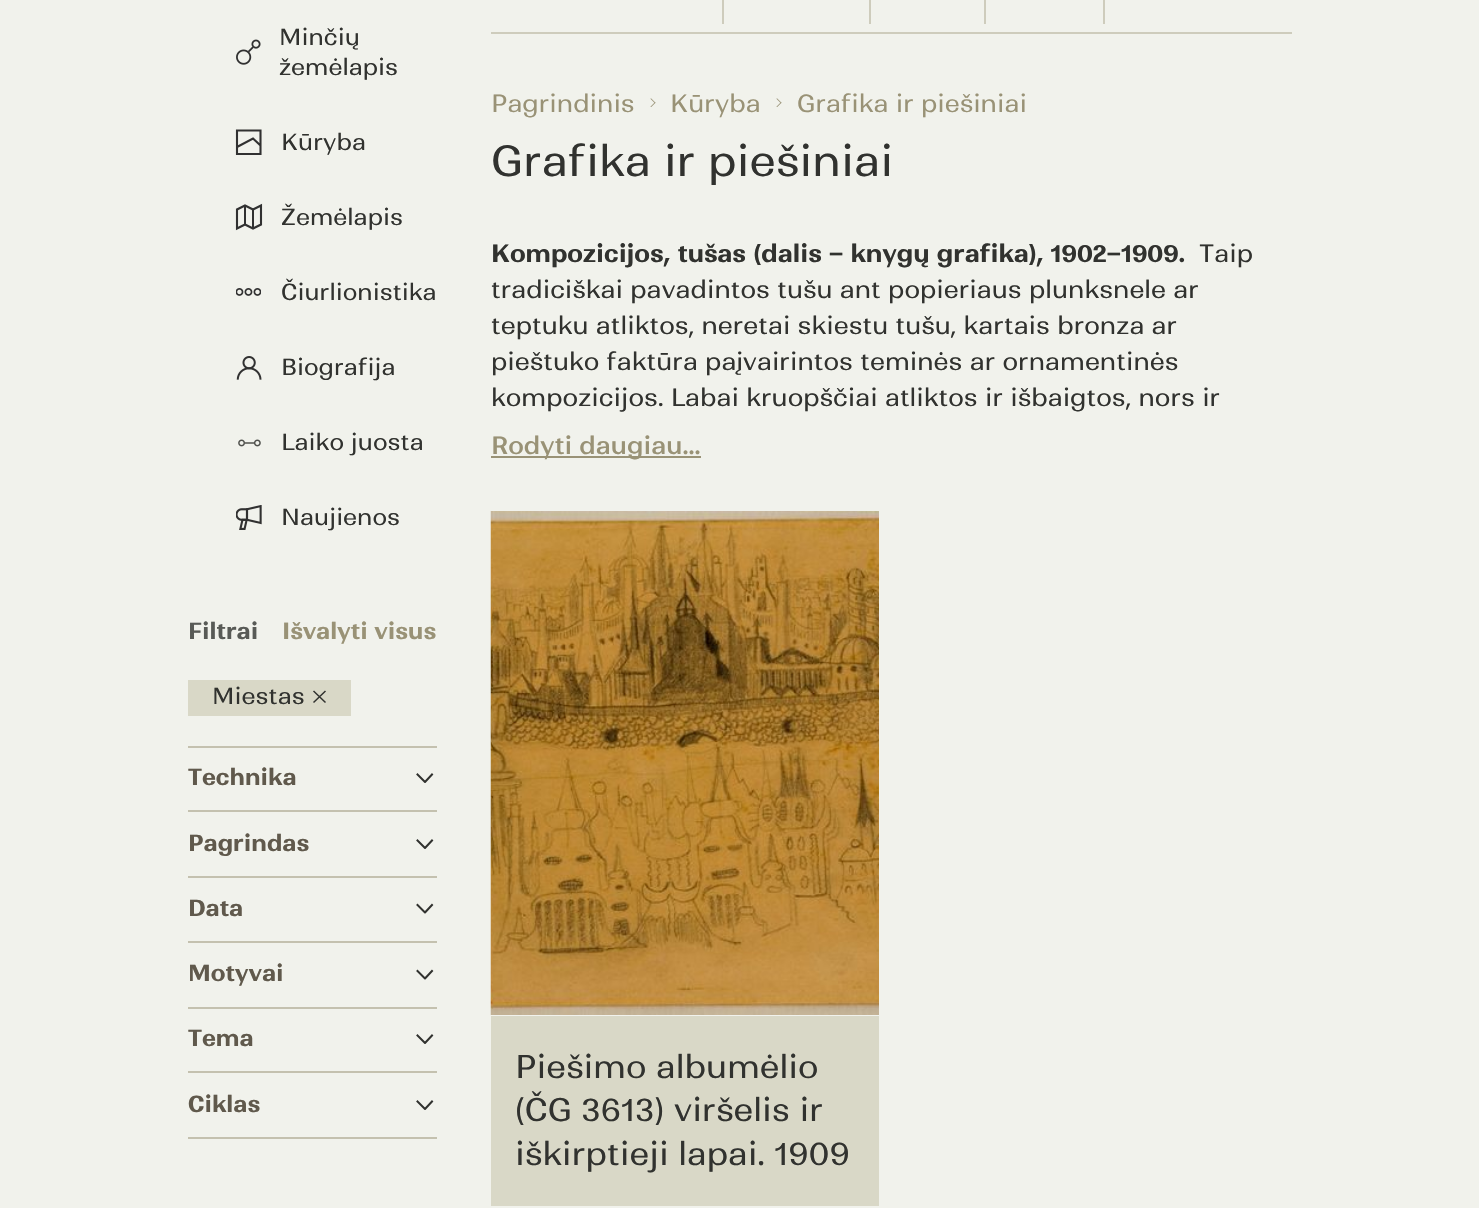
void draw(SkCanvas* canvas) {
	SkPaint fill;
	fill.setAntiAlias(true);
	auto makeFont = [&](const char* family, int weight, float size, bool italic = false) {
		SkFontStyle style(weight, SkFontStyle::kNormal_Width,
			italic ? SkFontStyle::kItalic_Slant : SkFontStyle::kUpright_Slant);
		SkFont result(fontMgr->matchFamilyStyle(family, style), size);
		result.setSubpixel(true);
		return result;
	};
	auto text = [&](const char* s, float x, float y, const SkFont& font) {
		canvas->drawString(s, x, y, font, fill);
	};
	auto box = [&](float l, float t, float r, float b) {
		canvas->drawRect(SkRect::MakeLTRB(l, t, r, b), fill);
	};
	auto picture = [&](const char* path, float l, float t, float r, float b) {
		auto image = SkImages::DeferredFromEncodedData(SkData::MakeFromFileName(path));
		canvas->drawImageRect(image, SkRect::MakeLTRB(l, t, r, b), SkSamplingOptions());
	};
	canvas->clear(0xFFF1F2EC);
	picture("image0.png", 236, 39, 261, 65);
	fill.setStyle(SkPaint::kStroke_Style);
	fill.setStrokeWidth(2.1f);
	fill.setColor(0xFF313131);
	canvas->drawPath(SkPathBuilder().moveTo(260.5f, 130.5f).lineTo(237, 130.5f).lineTo(237, 154).lineTo(260.5f, 154).close().moveTo(237, 147).lineTo(253, 138.5f).lineTo(260.5f, 145.5f).detach(), fill);
	canvas->drawPath(SkPathBuilder().moveTo(253, 209.5f).lineTo(245, 205.5f).lineTo(237, 209.5f).lineTo(237, 228.5f).lineTo(245, 224.5f).lineTo(253, 228.5f).lineTo(261, 224.5f).lineTo(261, 205.5f).close().detach(), fill);
	fill.setStyle(SkPaint::kFill_Style);
	box(244, 206, 246, 225);
	box(252, 210, 254, 228);
	picture("image1.png", 236, 288, 261, 296);
	picture("image2.png", 236, 356, 262, 380);
	picture("image3.png", 238, 439, 261, 447);
	picture("image4.png", 236, 505, 262, 530);
	fill.setColor(0xFFD9D8C7);
	box(188, 680, 351, 716);
	fill.setStyle(SkPaint::kStroke_Style);
	fill.setStrokeWidth(1.5f);
	fill.setColor(0xFF31322F);
	canvas->drawPath(SkPathBuilder().moveTo(313.5f, 691).lineTo(325.5f, 702.5f).moveTo(325.5f, 691).lineTo(313.5f, 702.5f).detach(), fill);
	fill.setStyle(SkPaint::kFill_Style);
	fill.setColor(0xFFC4C1AF);
	box(188, 746, 437, 748);
	box(188, 810, 437, 812);
	fill.setStyle(SkPaint::kStroke_Style);
	fill.setStrokeWidth(2);
	fill.setStrokeCap(SkPaint::kSquare_Cap);
	fill.setStrokeJoin(SkPaint::kRound_Join);
	fill.setColor(0xFF31322F);
	canvas->drawPath(SkPathBuilder().moveTo(417.5f, 774.5f).lineTo(425, 782).lineTo(432, 774.5f).detach(), fill);
	fill.setStyle(SkPaint::kFill_Style);
	fill.setColor(0xFFC4C1AF);
	box(188, 876, 437, 878);
	fill.setStyle(SkPaint::kStroke_Style);
	fill.setColor(0xFF31322F);
	canvas->drawPath(SkPathBuilder().moveTo(417.5f, 840.5f).lineTo(425, 848).lineTo(432, 840.5f).detach(), fill);
	fill.setStyle(SkPaint::kFill_Style);
	fill.setColor(0xFFC4C1AF);
	box(188, 941, 437, 943);
	fill.setStyle(SkPaint::kStroke_Style);
	fill.setColor(0xFF31322F);
	canvas->drawPath(SkPathBuilder().moveTo(417.5f, 905).lineTo(425, 912.5f).lineTo(432, 905).detach(), fill);
	fill.setStyle(SkPaint::kFill_Style);
	fill.setColor(0xFFC4C1AF);
	box(188, 1007, 437, 1009);
	fill.setStyle(SkPaint::kStroke_Style);
	fill.setColor(0xFF31322F);
	canvas->drawPath(SkPathBuilder().moveTo(417.5f, 971).lineTo(425, 978.5f).lineTo(432, 971).detach(), fill);
	fill.setStyle(SkPaint::kFill_Style);
	fill.setColor(0xFFC4C1AF);
	box(188, 1071, 437, 1073);
	fill.setStyle(SkPaint::kStroke_Style);
	fill.setColor(0xFF31322F);
	canvas->drawPath(SkPathBuilder().moveTo(417.5f, 1035.5f).lineTo(425, 1043).lineTo(432, 1035.5f).detach(), fill);
	fill.setStyle(SkPaint::kFill_Style);
	fill.setColor(0xFFC4C1AF);
	box(188, 1137, 437, 1139);
	fill.setStyle(SkPaint::kStroke_Style);
	fill.setColor(0xFF31322F);
	canvas->drawPath(SkPathBuilder().moveTo(417.5f, 1101.5f).lineTo(425, 1109).lineTo(432, 1101.5f).detach(), fill);
	fill.setStyle(SkPaint::kFill_Style);
	fill.setColor(0xFFCECCBC);
	box(491, 32, 1292, 34);
	box(722, 0, 724, 24);
	box(869, 0, 871, 24);
	box(984, 0, 986, 24);
	box(1103, 0, 1105, 24);
	picture("image5.png", 650, 98, 656, 107);
	picture("image5.png", 776, 98, 782, 107);
	fill.setColor(0xFF999276);
	box(491, 456, 701, 458);
	picture("image6.png", 490, 511, 879, 1015);
	fill.setColor(0xFFD9D8C7);
	box(491, 1016, 879, 1206);
	auto font1 = makeFont("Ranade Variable", 400, 22.5f);
	fill.setColor(0xFF31322F);
	text("Minčių", 279, 45, font1);
	text("žemėlapis", 279, 75, font1);
	text("Kūryba", 281, 150, font1);
	text("Žemėlapis", 281, 225, font1);
	text("Čiurlionistika", 281, 300, font1);
	text("Biografija", 281, 375, font1);
	text("Laiko juosta", 281, 450, font1);
	text("Naujienos", 281, 525, font1);
	auto font2 = makeFont("Ranade Variable", 700, 22.5f);
	fill.setColor(0xFF585A56);
	text("Filtrai", 188, 639, font2);
	fill.setColor(0xFF999276);
	text("Išvalyti visus", 282, 639, font2);
	fill.setColor(0xFF31322F);
	text("Miestas", 212, 704, font1);
	fill.setColor(0xFF60594C);
	text("Technika", 188, 785, font2);
	text("Pagrindas", 188, 851, font2);
	text("Data", 188, 916, font2);
	text("Motyvai", 188, 981, font2);
	text("Tema", 188, 1046, font2);
	text("Ciklas", 188, 1112, font2);
	auto font3 = makeFont("Ranade Variable", 400, 24);
	fill.setColor(0xFF999276);
	text("Pagrindinis", 491, 112, font3);
	text("Kūryba", 670, 112, font3);
	text("Grafika ir piešiniai", 797, 112, font3);
	auto font4 = makeFont("Ranade Variable", 400, 42);
	fill.setColor(0xFF31322F);
	text("Grafika ir piešiniai", 491, 176, font4);
	auto font5 = makeFont("Ranade Variable", 700, 24);
	text("Kompozicijos, tušas (dalis – knygų grafika), 1902–1909.", 491, 262, font5);
	text("Taip", 1199, 262, font3);
	text("tradiciškai pavadintos tušu ant popieriaus plunksnele ar", 491, 298, font3);
	text("teptuku atliktos, neretai skiestu tušu, kartais bronza ar", 491, 334, font3);
	text("pieštuko faktūra paįvairintos teminės ar ornamentinės", 491, 370, font3);
	text("kompozicijos. Labai kruopščiai atliktos ir išbaigtos, nors ir", 491, 406, font3);
	auto font6 = makeFont("Ranade Variable", 500, 24);
	fill.setColor(0xFF999276);
	text("Rodyti daugiau...", 491, 454, font6);
	auto font7 = makeFont("Ranade Variable", 400, 31.5f);
	fill.setColor(0xFF31322F);
	text("Piešimo albumėlio", 515, 1078, font7);
	text("(ČG 3613) viršelis ir", 515, 1121, font7);
	text("iškirptieji lapai. 1909", 515, 1165, font7);
}
